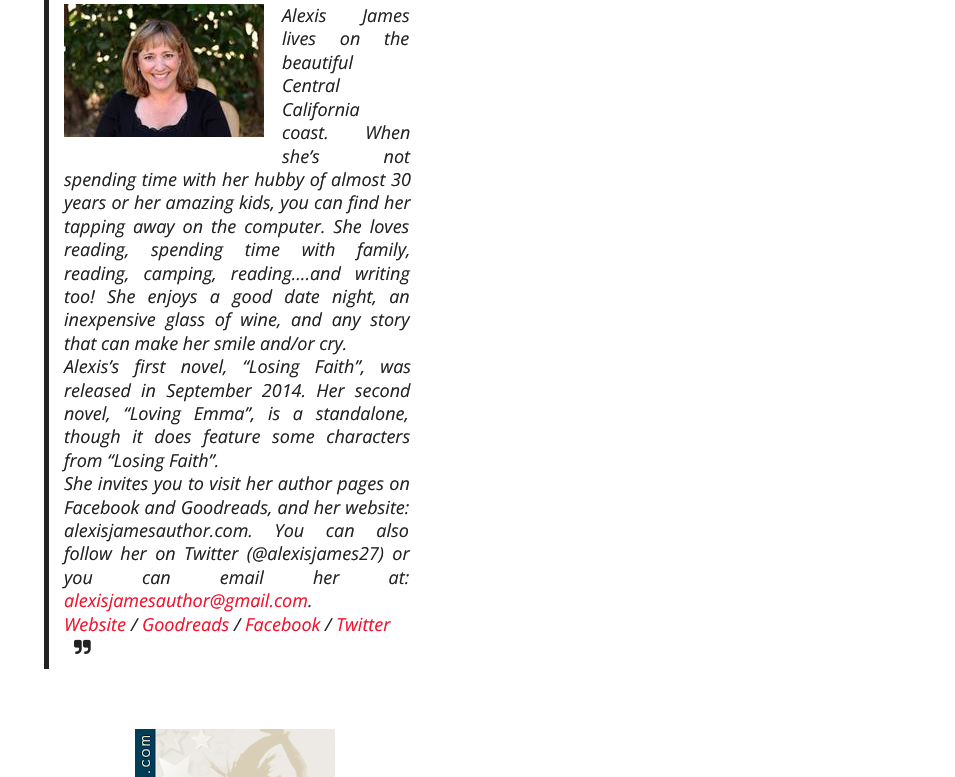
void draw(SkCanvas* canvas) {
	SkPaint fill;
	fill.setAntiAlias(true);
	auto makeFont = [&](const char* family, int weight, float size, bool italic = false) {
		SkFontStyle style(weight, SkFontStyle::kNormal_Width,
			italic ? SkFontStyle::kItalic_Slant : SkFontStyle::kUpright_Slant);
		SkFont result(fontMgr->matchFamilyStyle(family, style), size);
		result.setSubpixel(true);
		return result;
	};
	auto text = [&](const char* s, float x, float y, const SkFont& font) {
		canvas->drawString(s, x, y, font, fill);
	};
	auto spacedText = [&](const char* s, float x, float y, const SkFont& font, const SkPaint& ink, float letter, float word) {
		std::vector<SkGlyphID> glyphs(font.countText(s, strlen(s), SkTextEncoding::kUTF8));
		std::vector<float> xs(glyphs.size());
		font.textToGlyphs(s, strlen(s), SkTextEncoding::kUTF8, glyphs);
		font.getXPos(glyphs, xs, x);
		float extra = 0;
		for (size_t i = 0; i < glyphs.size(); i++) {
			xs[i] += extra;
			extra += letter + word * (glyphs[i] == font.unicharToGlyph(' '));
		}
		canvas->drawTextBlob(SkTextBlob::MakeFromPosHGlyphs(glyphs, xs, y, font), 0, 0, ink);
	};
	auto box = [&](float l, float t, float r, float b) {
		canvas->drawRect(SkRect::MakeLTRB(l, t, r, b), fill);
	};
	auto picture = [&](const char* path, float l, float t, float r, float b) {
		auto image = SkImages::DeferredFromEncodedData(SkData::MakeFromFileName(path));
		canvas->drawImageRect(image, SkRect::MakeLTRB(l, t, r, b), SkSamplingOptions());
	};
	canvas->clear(0xFFFFFFFF);
	fill.setColor(0xFF222222);
	box(44, 0, 49, 669);
	picture("image0.png", 64, 4, 264, 137);
	picture("image1.png", 74, 639, 91, 654);
	picture("image2.png", 135, 729, 335, 777);
	auto font1 = makeFont("Open Sans", 400, 18, true);
	spacedText("Alexis James", 282, 22, font1, fill, 0, 31);
	spacedText("lives on the", 282, 45, font1, fill, 0, 19);
	text("beautiful", 282, 69, font1);
	text("Central", 282, 92, font1);
	text("California", 282, 116, font1);
	spacedText("coast. When", 282, 139, font1, fill, 0, 32);
	spacedText("she’s not", 282, 163, font1, fill, 0, 59);
	spacedText("spending time with her hubby of almost 30", 64, 186, font1, fill, 0, 1);
	spacedText("years or her amazing kids, you can find her", 64, 209, font1, fill, 0, 0.5f);
	spacedText("tapping away on the computer. She loves", 64, 233, font1, fill, 0, 3.25f);
	spacedText("reading, spending time with family,", 64, 256, font1, fill, 0, 17);
	spacedText("reading, camping, reading….and writing", 64, 280, font1, fill, 0, 9.5f);
	spacedText("too! She enjoys a good date night, an", 64, 303, font1, fill, 0, 7.5f);
	spacedText("inexpensive glass of wine, and any story", 64, 326, font1, fill, 0, 5);
	text("that can make her smile and/or cry.", 64, 350, font1);
	spacedText("Alexis’s first novel, “Losing Faith”, was", 64, 373, font1, fill, 0, 10.5f);
	spacedText("released in September 2014. Her second", 64, 397, font1, fill, 0, 5.5f);
	spacedText("novel, “Loving Emma”, is a standalone,", 64, 420, font1, fill, 0, 8);
	spacedText("though it does feature some characters", 64, 443, font1, fill, 0, 7);
	text("from “Losing Faith”.", 64, 467, font1);
	spacedText("She invites you to visit her author pages on", 64, 490, font1, fill, 0, 0.75f);
	spacedText("Facebook and Goodreads, and her website:", 64, 514, font1, fill, 0, 0.5f);
	spacedText("alexisjamesauthor.com. You can also", 64, 537, font1, fill, 0, 17);
	spacedText("follow her on Twitter (@alexisjames27) or", 64, 560, font1, fill, 0, 3.75f);
	spacedText("you can email her at:", 64, 584, font1, fill, 0, 44.5f);
	fill.setColor(0xFFF2132D);
	text("alexisjamesauthor@gmail.com", 64, 607, font1);
	fill.setColor(0xFF222222);
	text(".", 308, 607, font1);
	fill.setColor(0xFFF2132D);
	text("Website", 64, 631, font1);
	fill.setColor(0xFF222222);
	text("/", 131, 631, font1);
	fill.setColor(0xFFF2132D);
	text("Goodreads", 142, 631, font1);
	fill.setColor(0xFF222222);
	text("/", 234, 631, font1);
	fill.setColor(0xFFF2132D);
	text("Facebook", 245, 631, font1);
	fill.setColor(0xFF222222);
	text("/", 325, 631, font1);
	fill.setColor(0xFFF2132D);
	text("Twitter", 336, 631, font1);
}
